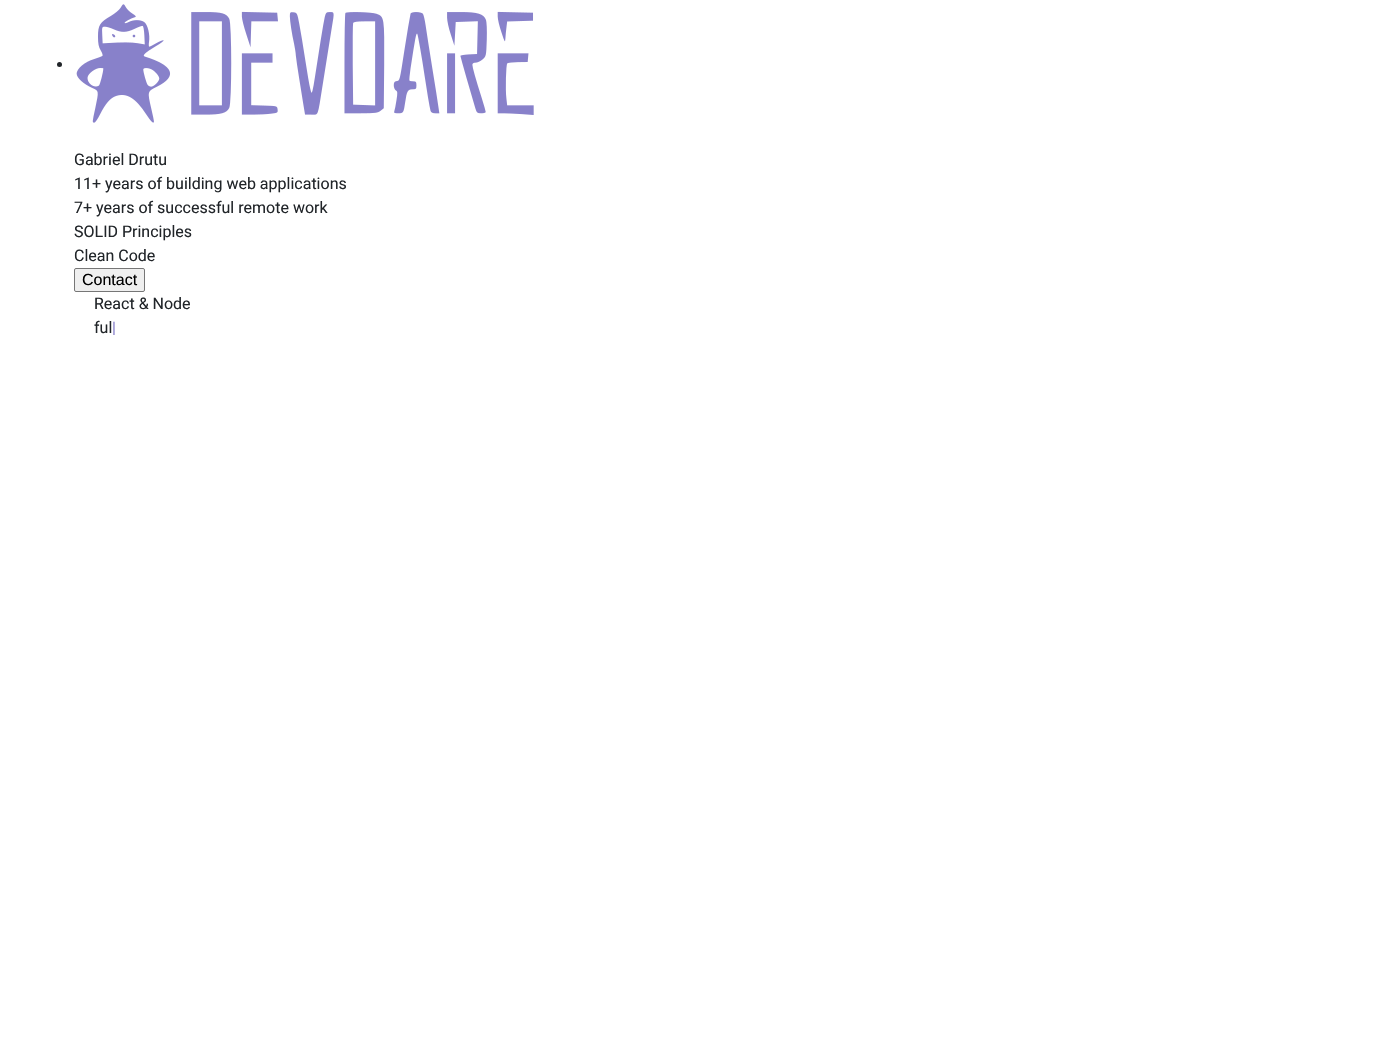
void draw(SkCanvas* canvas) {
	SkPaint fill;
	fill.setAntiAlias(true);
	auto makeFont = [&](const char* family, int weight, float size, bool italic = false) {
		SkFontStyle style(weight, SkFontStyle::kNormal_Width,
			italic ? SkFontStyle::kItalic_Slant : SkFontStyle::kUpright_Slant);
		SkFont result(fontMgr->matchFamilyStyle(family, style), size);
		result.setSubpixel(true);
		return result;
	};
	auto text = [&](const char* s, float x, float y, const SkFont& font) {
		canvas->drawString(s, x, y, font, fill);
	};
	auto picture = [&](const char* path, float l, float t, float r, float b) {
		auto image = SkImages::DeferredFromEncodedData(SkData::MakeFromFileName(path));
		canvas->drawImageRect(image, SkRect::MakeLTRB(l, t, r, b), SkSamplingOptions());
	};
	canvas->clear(0xFFFFFFFF);
	fill.setColor(0xFF212529);
	canvas->drawCircle(59.5f, 64.5f, 2.5f, fill);
	picture("image0.png", 76, 4, 534, 123);
	fill.setColor(0xFFEFEFEF);
	canvas->drawRoundRect(SkRect::MakeLTRB(74.5f, 268.5f, 144.5f, 291.5f), 1.5f, 1.5f, fill);
	fill.setStyle(SkPaint::kStroke_Style);
	fill.setStrokeWidth(1);
	fill.setColor(0xFF767676);
	canvas->drawRoundRect(SkRect::MakeLTRB(74.5f, 268.5f, 144.5f, 291.5f), 1.5f, 1.5f, fill);
	auto font1 = makeFont("Roboto", 400, 16);
	fill.setStyle(SkPaint::kFill_Style);
	fill.setColor(0xFF212529);
	text("Gabriel Drutu", 74, 165, font1);
	text("11+ years of building web applications", 74, 189, font1);
	text("7+ years of successful remote work", 74, 213, font1);
	text("SOLID Principles", 74, 237, font1);
	text("Clean Code", 74, 261, font1);
	auto font2 = makeFont("Liberation Sans", 400, 16);
	fill.setColor(0xFF000000);
	text("Contact", 82, 285, font2);
	fill.setColor(0xFF212529);
	text("React & Node", 94, 309, font1);
	text("ful", 94, 333, font1);
	fill.setColor(0xFF8881CA);
	text("|", 112, 333, font1);
}
